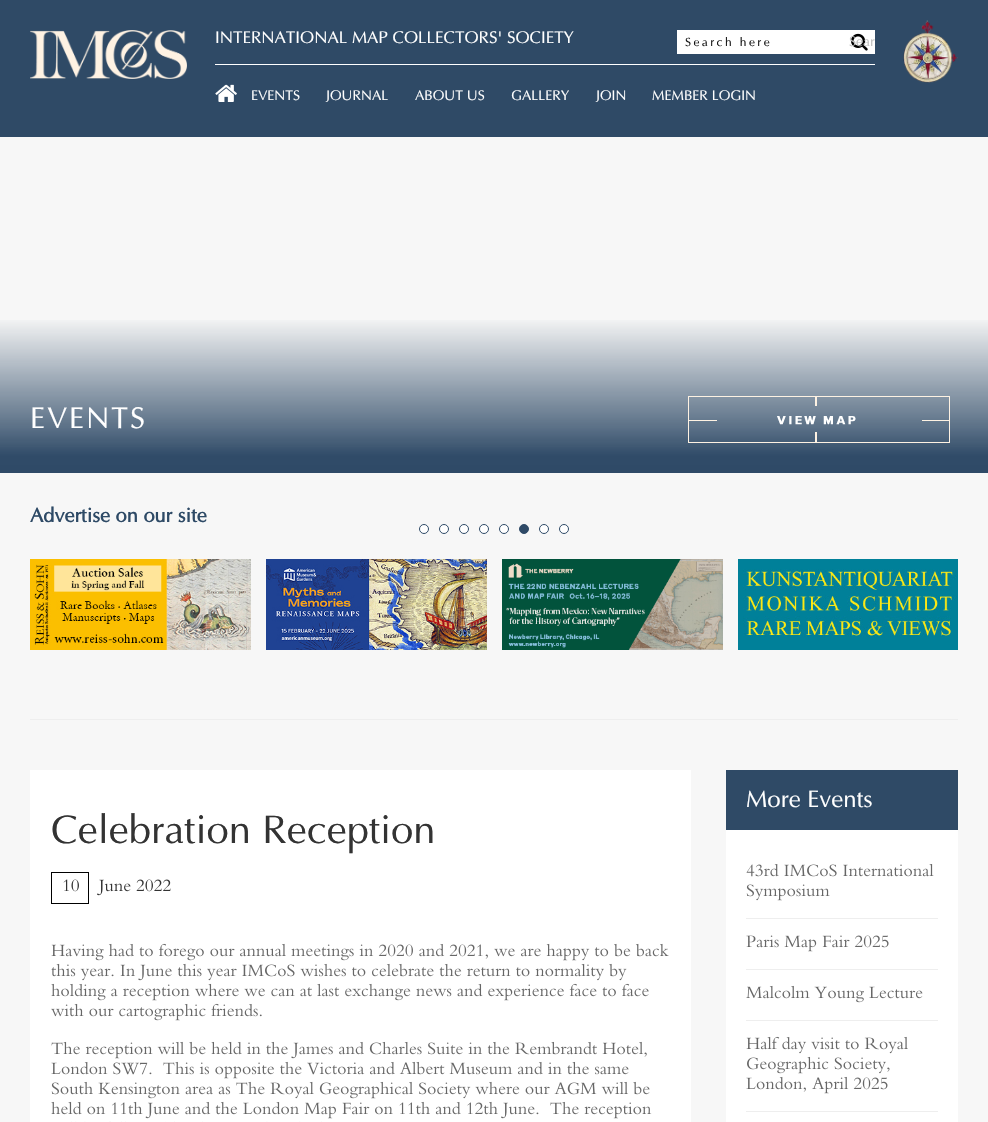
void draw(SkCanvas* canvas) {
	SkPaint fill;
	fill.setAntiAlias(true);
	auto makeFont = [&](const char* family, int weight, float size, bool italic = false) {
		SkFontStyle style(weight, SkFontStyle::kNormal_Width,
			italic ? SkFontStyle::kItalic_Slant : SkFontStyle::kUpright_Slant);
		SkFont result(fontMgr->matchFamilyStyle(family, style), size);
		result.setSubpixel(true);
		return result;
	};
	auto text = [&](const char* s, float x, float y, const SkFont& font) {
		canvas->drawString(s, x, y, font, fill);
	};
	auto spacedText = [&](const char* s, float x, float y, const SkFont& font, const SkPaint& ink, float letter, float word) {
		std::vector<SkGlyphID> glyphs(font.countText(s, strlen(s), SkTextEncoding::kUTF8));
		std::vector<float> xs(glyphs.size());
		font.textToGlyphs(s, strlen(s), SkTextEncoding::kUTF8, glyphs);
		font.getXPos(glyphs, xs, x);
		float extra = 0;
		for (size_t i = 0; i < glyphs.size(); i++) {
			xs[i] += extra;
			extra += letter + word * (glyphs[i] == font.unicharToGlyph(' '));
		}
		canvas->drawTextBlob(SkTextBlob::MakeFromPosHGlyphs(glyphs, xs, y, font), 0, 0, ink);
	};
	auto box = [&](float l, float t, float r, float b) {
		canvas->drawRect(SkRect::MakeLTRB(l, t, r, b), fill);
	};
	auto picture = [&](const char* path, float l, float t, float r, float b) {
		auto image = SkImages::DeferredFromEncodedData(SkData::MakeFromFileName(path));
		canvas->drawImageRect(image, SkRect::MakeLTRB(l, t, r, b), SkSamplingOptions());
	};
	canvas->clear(0xFFF7F7F7);
	fill.setColor(0xFF2F4A66);
	box(0, 0, 988, 137);
	picture("image0.png", 30, 30, 187, 79);
	fill.setColor(0xFFFFFFFF);
	box(215, 64, 875, 65);
	box(677, 30, 875, 54);
	picture("image1.png", 851, 33, 868, 51);
	picture("image2.png", 215, 84, 237, 102);
	picture("image3.png", 903, 20, 958, 83);
	{
		const SkColor colors[] = {0x00F8C3BF, 0x00FCB5AB, 0x002F4A67, 0x00517BA9, 0x00324D69, 0x8A324D69, 0xBA324D69, 0xFF304B68, 0xFF2F4A67};
		const float stops[] = {0, 0.06f, 0.09f, 0.43f, 0.54f, 0.76f, 0.84f, 0.95f, 1};
		const SkPoint ends[] = {{494, 133}, {494, 473}};
		fill.setShader(SkGradientShader::MakeLinear(ends, colors, stops, 9, SkTileMode::kClamp));
		fill.setAlpha(255);
	}
	box(0, 320, 988, 473);
	picture("image4.png", 688, 396, 950, 443);
	fill.setShader(nullptr);
	fill.setColor(0xFFEEEEEE);
	box(30, 719, 958, 720);
	fill.setColor(0xFFFFFFFF);
	canvas->drawCircle(424, 529, 4.5f, fill);
	fill.setStyle(SkPaint::kStroke_Style);
	fill.setStrokeWidth(1);
	fill.setColor(0xFF2F4A67);
	canvas->drawCircle(424, 529, 4.5f, fill);
	fill.setStyle(SkPaint::kFill_Style);
	fill.setColor(0xFFFFFFFF);
	canvas->drawCircle(444, 529, 4.5f, fill);
	fill.setStyle(SkPaint::kStroke_Style);
	fill.setColor(0xFF2F4A67);
	canvas->drawCircle(444, 529, 4.5f, fill);
	fill.setStyle(SkPaint::kFill_Style);
	fill.setColor(0xFFFFFFFF);
	canvas->drawCircle(464, 529, 4.5f, fill);
	fill.setStyle(SkPaint::kStroke_Style);
	fill.setColor(0xFF2F4A67);
	canvas->drawCircle(464, 529, 4.5f, fill);
	fill.setStyle(SkPaint::kFill_Style);
	fill.setColor(0xFFFFFFFF);
	canvas->drawCircle(484, 529, 4.5f, fill);
	fill.setStyle(SkPaint::kStroke_Style);
	fill.setColor(0xFF2F4A67);
	canvas->drawCircle(484, 529, 4.5f, fill);
	fill.setStyle(SkPaint::kFill_Style);
	fill.setColor(0xFFFFFFFF);
	canvas->drawCircle(504, 529, 4.5f, fill);
	fill.setStyle(SkPaint::kStroke_Style);
	fill.setColor(0xFF2F4A67);
	canvas->drawCircle(504, 529, 4.5f, fill);
	fill.setStyle(SkPaint::kFill_Style);
	canvas->drawCircle(524, 529, 4.5f, fill);
	fill.setStyle(SkPaint::kStroke_Style);
	canvas->drawCircle(524, 529, 4.5f, fill);
	fill.setStyle(SkPaint::kFill_Style);
	fill.setColor(0xFFFFFFFF);
	canvas->drawCircle(544, 529, 4.5f, fill);
	fill.setStyle(SkPaint::kStroke_Style);
	fill.setColor(0xFF2F4A67);
	canvas->drawCircle(544, 529, 4.5f, fill);
	fill.setStyle(SkPaint::kFill_Style);
	fill.setColor(0xFFFFFFFF);
	canvas->drawCircle(564, 529, 4.5f, fill);
	fill.setStyle(SkPaint::kStroke_Style);
	fill.setColor(0xFF2F4A67);
	canvas->drawCircle(564, 529, 4.5f, fill);
	picture("image5.png", 30, 559, 251, 650);
	picture("image6.png", 266, 559, 487, 650);
	picture("image7.png", 502, 559, 723, 650);
	picture("image8.png", 738, 559, 958, 650);
	fill.setStyle(SkPaint::kFill_Style);
	fill.setColor(0xFFFFFFFF);
	box(726, 830, 958, 1122);
	fill.setColor(0xFF2F4A66);
	box(726, 770, 958, 830);
	fill.setColor(0xFFEEEEEE);
	box(746, 918, 938, 919);
	picture("image9.png", 746, 864, 934, 877);
	picture("image10.png", 746, 884, 830, 901);
	box(746, 969, 938, 970);
	picture("image11.png", 746, 935, 889, 952);
	box(746, 1020, 938, 1021);
	picture("image12.png", 746, 985, 923, 1003);
	box(746, 1111, 938, 1112);
	picture("image13.png", 746, 1036, 908, 1054);
	picture("image14.png", 747, 1056, 890, 1074);
	picture("image15.png", 746, 1076, 888, 1094);
	fill.setColor(0xFFFFFFFF);
	box(30, 770, 691, 1122);
	fill.setStyle(SkPaint::kStroke_Style);
	fill.setColor(0xFF000000);
	canvas->drawRect(SkRect::MakeLTRB(51.5f, 872.5f, 88.5f, 903.5f), fill);
	picture("image16.png", 63, 879, 79, 892);
	picture("image17.png", 97, 879, 131, 896);
	picture("image18.png", 136, 879, 171, 892);
	picture("image19.png", 51, 943, 669, 961);
	picture("image20.png", 51, 963, 627, 981);
	picture("image21.png", 51, 983, 649, 1001);
	picture("image22.png", 51, 1003, 262, 1021);
	picture("image23.png", 51, 1041, 647, 1059);
	picture("image24.png", 51, 1061, 629, 1079);
	picture("image25.png", 51, 1081, 650, 1099);
	picture("image26.png", 51, 1101, 652, 1119);
	picture("image27.png", 71, 1121, 322, 1122);
	auto font1 = makeFont("Optima", 400, 17);
	fill.setStyle(SkPaint::kFill_Style);
	fill.setColor(0xFFFFFFFF);
	text("INTERNATIONAL MAP COLLECTORS' SOCIETY", 215, 43, font1);
	auto font2 = makeFont("Optima", 400, 12);
	fill.setColor(0xFF111111);
	spacedText("Search here", 685, 46, font2, fill, 2.4f, 0);
	auto font3 = makeFont("Optima", 400, 14);
	fill.setColor(0xFFBFBFBF);
	text("Sear", 849, 46, font3);
	fill.setColor(0xFFFFFFFF);
	text("EVENTS", 251, 100, font3);
	text("JOURNAL", 326, 100, font3);
	text("ABOUT US", 415, 100, font3);
	text("GALLERY", 511, 100, font3);
	text("JOIN", 596, 100, font3);
	text("MEMBER LOGIN", 652, 100, font3);
	auto font4 = makeFont("Optima", 400, 30);
	spacedText("EVENTS", 30, 428, font4, fill, 2, 0);
	auto font5 = makeFont("Optima", 700, 20);
	fill.setColor(0xFF2E4A66);
	text("Advertise on our site", 30, 522, font5);
	auto font6 = makeFont("Optima", 400, 24);
	fill.setColor(0xFFFFFFFF);
	text("More Events", 746, 807, font6);
	auto font7 = makeFont("Optima", 400, 40);
	fill.setColor(0xFF333333);
	text("Celebration Reception", 51, 843, font7);
}
